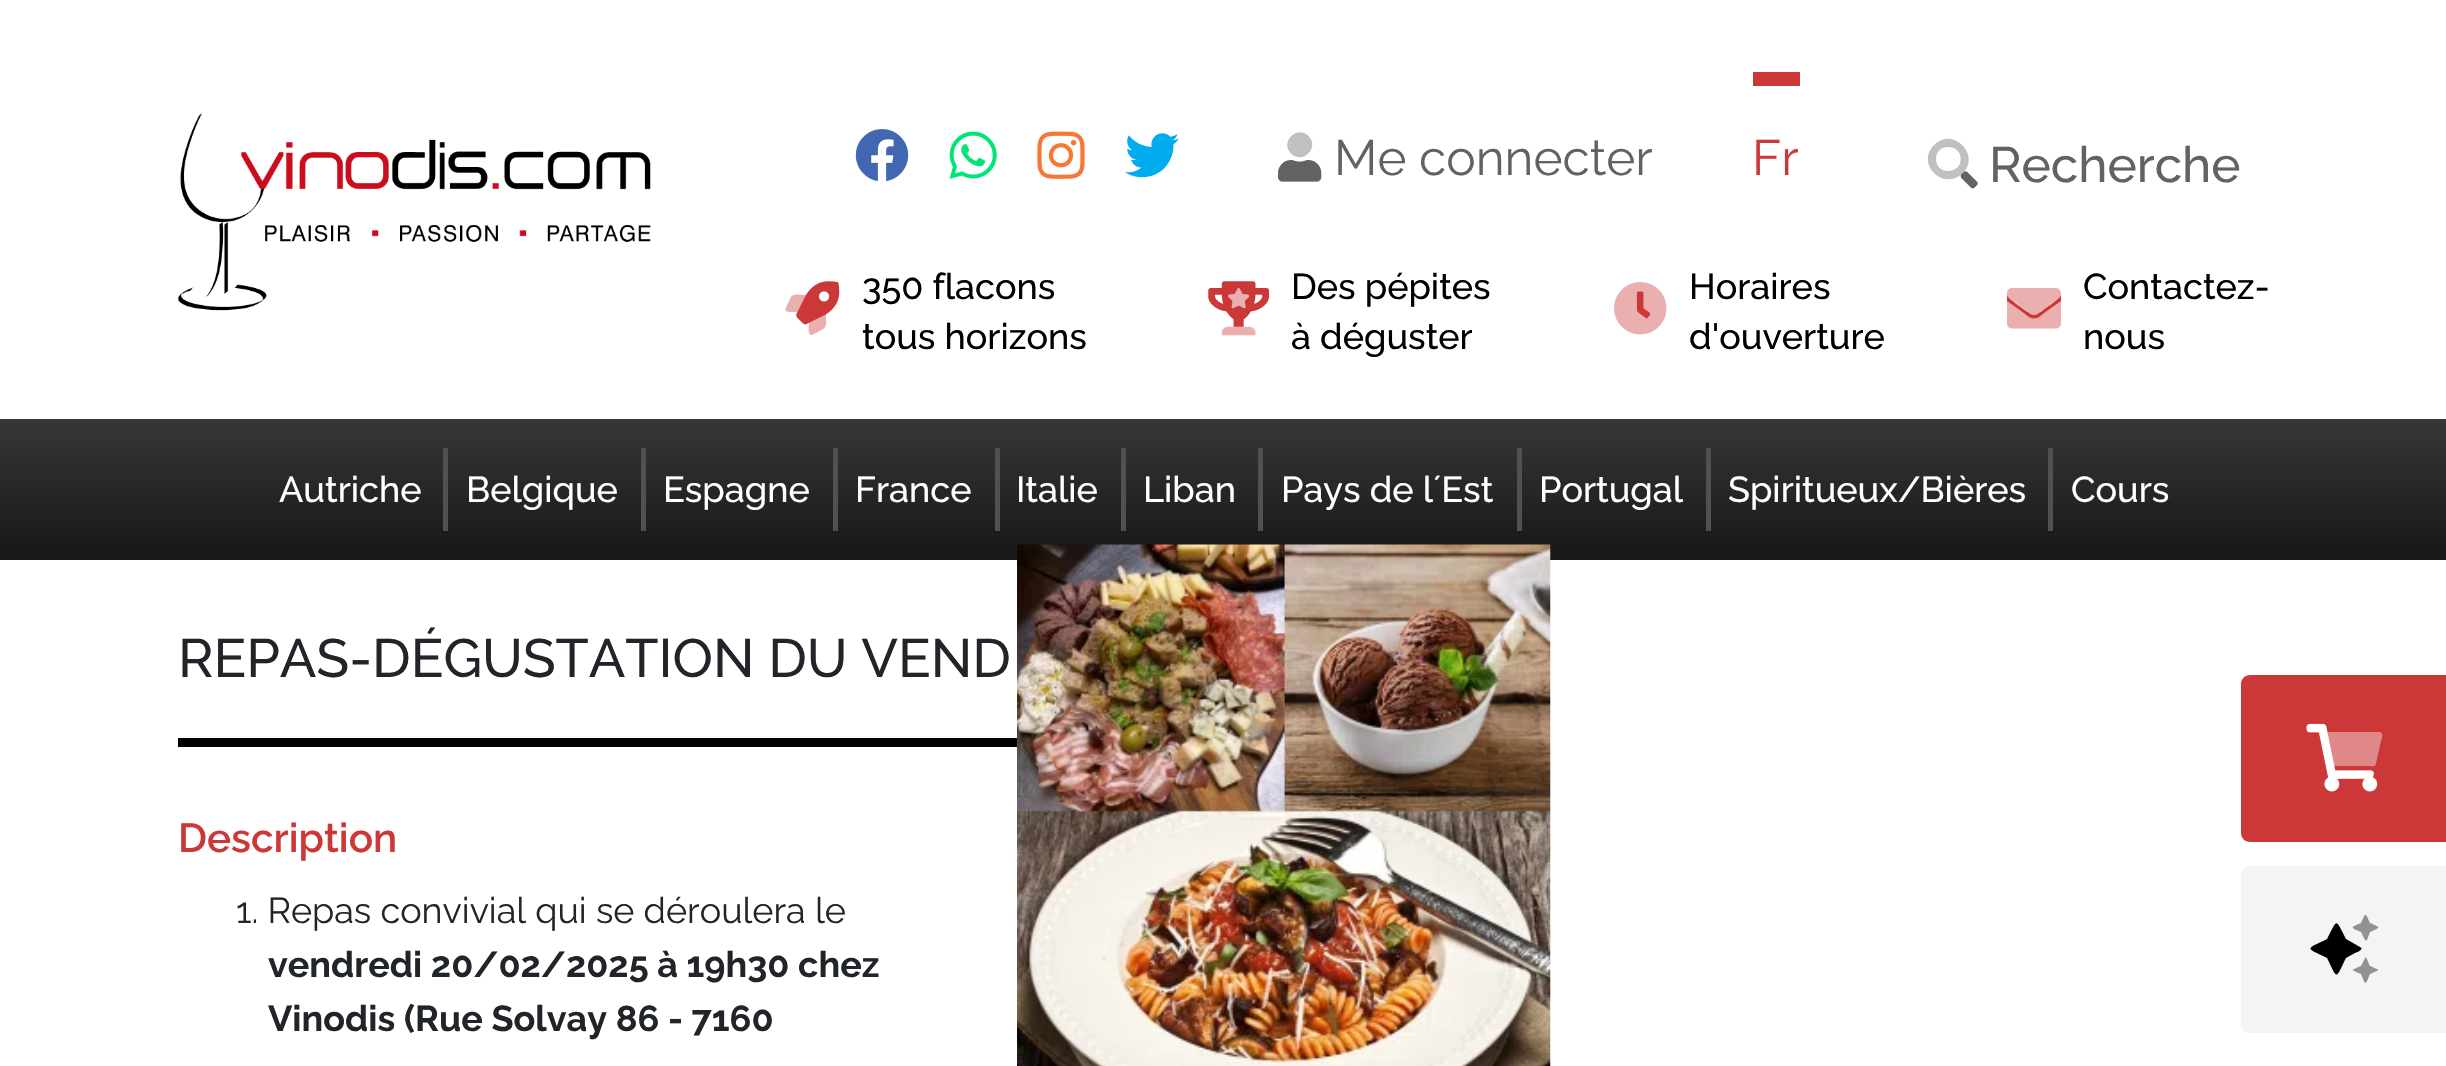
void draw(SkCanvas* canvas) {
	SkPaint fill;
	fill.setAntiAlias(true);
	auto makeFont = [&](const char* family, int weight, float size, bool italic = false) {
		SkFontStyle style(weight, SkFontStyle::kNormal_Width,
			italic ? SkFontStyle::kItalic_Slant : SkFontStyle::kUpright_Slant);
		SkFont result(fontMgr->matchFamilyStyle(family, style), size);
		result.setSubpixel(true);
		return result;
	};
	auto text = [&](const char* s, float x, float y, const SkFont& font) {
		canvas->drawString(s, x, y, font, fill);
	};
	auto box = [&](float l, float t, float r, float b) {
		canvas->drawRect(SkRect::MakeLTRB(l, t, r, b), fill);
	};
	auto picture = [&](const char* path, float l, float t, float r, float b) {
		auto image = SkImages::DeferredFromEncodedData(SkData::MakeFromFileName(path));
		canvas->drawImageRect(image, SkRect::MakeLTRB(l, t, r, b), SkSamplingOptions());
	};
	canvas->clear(0xFFFFFFFF);
	picture("image0.png", 177, 113, 651, 311);
	picture("image1.png", 855, 129, 909, 181);
	picture("image2.png", 949, 131, 997, 179);
	picture("image3.png", 1037, 131, 1085, 179);
	picture("image4.png", 1125, 133, 1179, 178);
	fill.setColor(0xFFC0C0C0);
	canvas->drawPath(SkPathBuilder().moveTo(1308.5f, 136).cubicTo(1320, 147.5f, 1302.5f, 165, 1291, 153.5f).cubicTo(1279.5f, 142, 1297, 124.5f, 1308.5f, 136).close().detach(), fill);
	picture("image5.png", 1278, 160, 1322, 182);
	fill.setColor(0xFFCB3837);
	box(1753, 72, 1800, 86);
	picture("image6.png", 1960, 171, 1978, 189);
	fill.setColor(0x66626262);
	canvas->drawPath(SkPathBuilder().moveTo(1948, 147).cubicTo(1932, 147, 1932, 171, 1948, 171).cubicTo(1965, 171, 1965, 147, 1948, 147).close().moveTo(1934, 145).cubicTo(1953, 126, 1981, 155, 1963, 173).cubicTo(1944, 192, 1915, 164, 1934, 145).close().detach(), fill);
	picture("image7.png", 796, 281, 840, 325);
	fill.setColor(0x66CB3837);
	canvas->drawPath(SkPathBuilder().moveTo(791, 297).cubicTo(793, 293, 802, 295, 806, 295).lineTo(798, 312).cubicTo(781, 312, 784, 312, 791, 297).close().moveTo(809, 323).lineTo(826, 314).cubicTo(826, 328, 828, 327, 816, 333).lineTo(812, 335).cubicTo(807, 336, 809, 325, 809, 323).close().detach(), fill);
	picture("image8.png", 1208, 281, 1269, 327);
	picture("image9.png", 1221, 288, 1256, 336);
	picture("image11.png", 1636, 291, 1651, 319);
	picture("image10.png", 1614, 282, 1667, 335);
	fill.setColor(0xFFCB3837);
	canvas->drawPath(SkPathBuilder().moveTo(2061, 295).lineTo(2061, 301).lineTo(2043, 314).cubicTo(2036, 320, 2032, 320, 2025, 314).lineTo(2007, 301).lineTo(2007, 295).cubicTo(2007, 298, 2024, 309, 2026, 311).cubicTo(2027, 311, 2031, 315, 2034, 315).cubicTo(2037, 315, 2041, 311, 2042, 311).cubicTo(2044, 309, 2061, 298, 2061, 295).close().detach(), fill);
	picture("image12.png", 2007, 288, 2061, 329);
	{
		const SkColor colors[] = {0xFF373737, 0xFF171717};
		const float stops[] = {0, 1};
		const SkPoint ends[] = {{1224, 418}, {1224, 560}};
		fill.setShader(SkGradientShader::MakeLinear(ends, colors, stops, 2, SkTileMode::kClamp));
		fill.setAlpha(255);
	}
	box(0, 419, 2446, 560);
	fill.setShader(nullptr);
	fill.setColor(0xFF515151);
	box(443, 448, 448, 531);
	box(641, 448, 646, 531);
	box(833, 448, 838, 531);
	box(995, 448, 1000, 531);
	box(1121, 448, 1126, 531);
	box(1258, 448, 1263, 531);
	box(1517, 448, 1522, 531);
	box(1706, 448, 1711, 531);
	box(2048, 448, 2053, 531);
	fill.setColor(0xFF000000);
	box(178, 738, 1017, 747);
	picture("image13.png", 1017, 544, 1551, 1066);
	fill.setColor(0xFFCB3837);
	canvas->drawPath(SkPathBuilder().moveTo(2250, 675).lineTo(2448, 675).lineTo(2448, 842).lineTo(2250, 842).cubicTo(2245, 842, 2241, 838, 2241, 833).lineTo(2241, 684).cubicTo(2241, 679, 2245, 675, 2250, 675).close().detach(), fill);
	picture("image14.png", 2306, 723, 2378, 792);
	fill.setColor(0x66FFFFFF);
	canvas->drawPath(SkPathBuilder().moveTo(2379, 732).cubicTo(2384, 732, 2382, 738, 2381, 741).lineTo(2377, 759).cubicTo(2375, 768, 2376, 766, 2366, 766).lineTo(2334, 766).lineTo(2327, 732).close().detach(), fill);
	fill.setColor(0xFFF4F4F4);
	canvas->drawPath(SkPathBuilder().moveTo(2250, 866).lineTo(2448, 866).lineTo(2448, 1033).lineTo(2250, 1033).cubicTo(2245, 1033, 2241, 1029, 2241, 1024).lineTo(2241, 875).cubicTo(2241, 870, 2245, 866, 2250, 866).close().detach(), fill);
	fill.setColor(0xFF000000);
	canvas->drawPath(SkPathBuilder().moveTo(2360, 947).cubicTo(2365, 949, 2356, 953, 2355, 953).lineTo(2346, 958).cubicTo(2335, 980, 2338, 980, 2327, 958).cubicTo(2305, 947, 2305, 950, 2327, 939).cubicTo(2338, 918, 2335, 918, 2346, 939).close().detach(), fill);
	fill.setColor(0xFF929292);
	canvas->drawPath(SkPathBuilder().moveTo(2367, 940).cubicTo(2365, 943, 2362, 933, 2361, 932).cubicTo(2350, 927, 2350, 928, 2361, 923).cubicTo(2366, 912, 2365, 912, 2370, 923).cubicTo(2381, 928, 2381, 927, 2370, 932).close().moveTo(2365, 958).cubicTo(2366, 954, 2369, 965, 2370, 966).cubicTo(2381, 971, 2381, 969, 2370, 974).cubicTo(2365, 986, 2366, 986, 2361, 974).cubicTo(2350, 969, 2350, 971, 2361, 966).close().detach(), fill);
	auto font1 = makeFont("Raleway", 400, 49.5f);
	fill.setColor(0xFF626262);
	text("Me connecter", 1334, 175, font1);
	fill.setColor(0xFFCB3837);
	text("Fr", 1752, 175, font1);
	auto font2 = makeFont("Raleway", 500, 49.5f);
	fill.setColor(0xFF626262);
	text("Recherche", 1989, 182, font2);
	auto font3 = makeFont("Raleway", 500, 36);
	fill.setColor(0xFF000000);
	text("350 flacons", 862, 299, font3);
	text("tous horizons", 862, 349, font3);
	text("Des pépites", 1291, 299, font3);
	text("à déguster", 1291, 349, font3);
	text("Horaires", 1689, 299, font3);
	text("d'ouverture", 1689, 349, font3);
	text("Contactez-", 2083, 299, font3);
	text("nous", 2083, 349, font3);
	fill.setColor(0xFFFFFFFF);
	text("Autriche", 279, 502, font3);
	text("Belgique", 466, 502, font3);
	text("Espagne", 663, 502, font3);
	text("France", 855, 502, font3);
	text("Italie", 1016, 502, font3);
	text("Liban", 1143, 502, font3);
	text("Pays de l´Est", 1281, 502, font3);
	text("Portugal", 1539, 502, font3);
	text("Spiritueux/Bières", 1728, 502, font3);
	text("Cours", 2071, 502, font3);
	auto font4 = makeFont("Raleway", 500, 54);
	fill.setColor(0xFF212529);
	text("REPAS-DÉGUSTATION DU VEND", 178, 677, font4);
	auto font5 = makeFont("Raleway", 600, 40.5f);
	fill.setColor(0xFFCB3837);
	text("Description", 178, 852, font5);
	auto font6 = makeFont("Raleway", 400, 36);
	fill.setColor(0xFF212529);
	text("1. Repas convivial qui se déroulera le", 236, 923, font6);
	auto font7 = makeFont("Raleway", 700, 36);
	text("vendredi 20/02/2025 à 19h30 chez", 268, 977, font7);
	text("Vinodis (Rue Solvay 86 - 7160", 268, 1031, font7);
}
